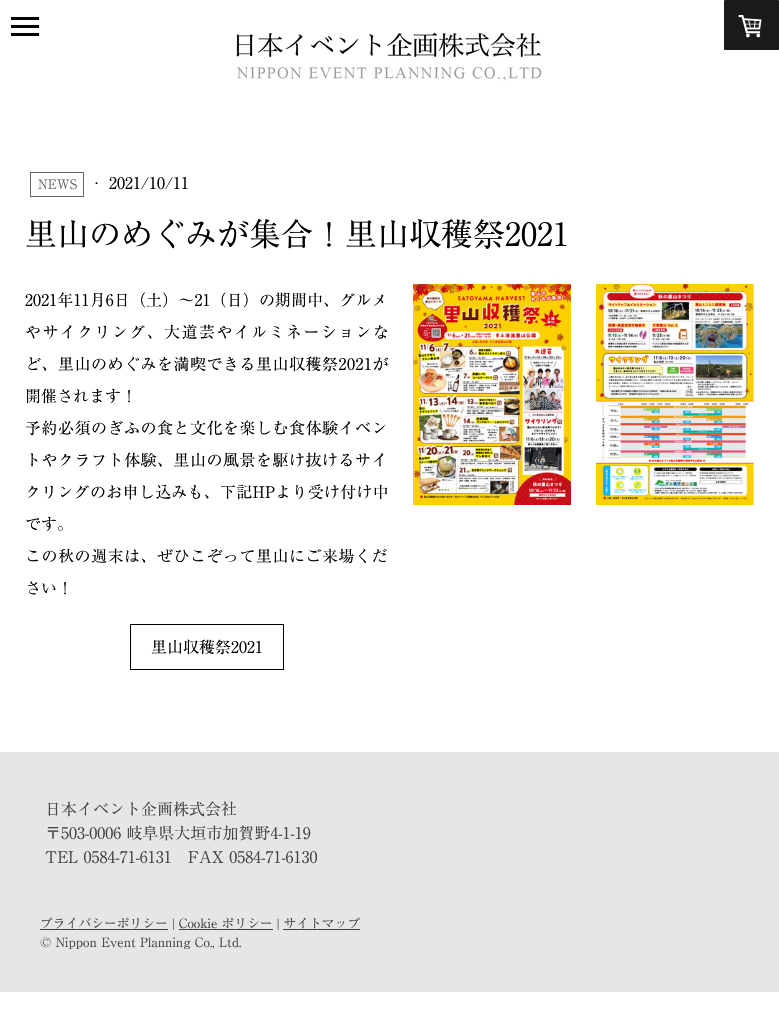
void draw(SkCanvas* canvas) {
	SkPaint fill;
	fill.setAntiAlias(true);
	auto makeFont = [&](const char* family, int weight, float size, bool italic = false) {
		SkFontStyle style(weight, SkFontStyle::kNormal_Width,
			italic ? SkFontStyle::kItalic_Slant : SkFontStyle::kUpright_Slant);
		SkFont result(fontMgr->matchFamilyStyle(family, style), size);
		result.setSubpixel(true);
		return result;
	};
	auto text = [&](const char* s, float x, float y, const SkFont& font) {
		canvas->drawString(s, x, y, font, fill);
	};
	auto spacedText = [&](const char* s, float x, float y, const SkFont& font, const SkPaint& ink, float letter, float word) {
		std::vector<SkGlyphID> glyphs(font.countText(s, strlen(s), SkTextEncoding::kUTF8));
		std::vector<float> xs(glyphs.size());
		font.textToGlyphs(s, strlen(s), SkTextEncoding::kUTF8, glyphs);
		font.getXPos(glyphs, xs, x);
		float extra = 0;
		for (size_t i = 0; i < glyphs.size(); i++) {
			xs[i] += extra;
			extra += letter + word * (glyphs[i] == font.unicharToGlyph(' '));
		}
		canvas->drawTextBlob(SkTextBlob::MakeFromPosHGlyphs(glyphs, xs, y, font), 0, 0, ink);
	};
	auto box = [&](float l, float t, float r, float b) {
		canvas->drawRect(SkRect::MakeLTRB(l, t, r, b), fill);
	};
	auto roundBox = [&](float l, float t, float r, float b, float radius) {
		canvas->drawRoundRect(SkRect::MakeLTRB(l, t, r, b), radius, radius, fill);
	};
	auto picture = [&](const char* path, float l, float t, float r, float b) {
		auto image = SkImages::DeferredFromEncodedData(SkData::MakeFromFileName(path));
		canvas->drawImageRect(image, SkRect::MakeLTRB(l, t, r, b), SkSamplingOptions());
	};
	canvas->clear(0xFFFFFFFF);
	fill.setColor(0xFF000000);
	box(11, 25, 39, 28);
	box(11, 17, 39, 20);
	box(11, 33, 39, 36);
	fill.setColor(0xFF1A1A1A);
	roundBox(724, 0, 779, 50, 1);
	picture("image0.png", 738, 15, 762, 38);
	picture("image1.png", 236, 32, 542, 81);
	fill.setStyle(SkPaint::kStroke_Style);
	fill.setStrokeWidth(1);
	fill.setColor(0xFF666666);
	canvas->drawRect(SkRect::MakeLTRB(30.5f, 172.5f, 83.5f, 196.5f), fill);
	fill.setColor(0xFF000000);
	canvas->drawRect(SkRect::MakeLTRB(130.5f, 624.5f, 283.5f, 669.5f), fill);
	picture("image2.png", 413, 284, 571, 505);
	picture("image3.png", 596, 284, 754, 505);
	fill.setStyle(SkPaint::kFill_Style);
	fill.setColor(0xFFE6E6E6);
	box(0, 752, 779, 992);
	fill.setColor(0xFF444444);
	box(40, 929, 168, 930);
	box(179, 929, 273, 930);
	box(283, 929, 360, 930);
	auto font1 = makeFont("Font", 400, 13);
	fill.setColor(0xFF666666);
	text("NEWS", 38, 189, font1);
	auto font2 = makeFont("Font", 400, 16);
	fill.setColor(0xFF000000);
	text("·", 95, 189, font2);
	text("2021/10/11", 109, 189, font2);
	auto font3 = makeFont("Font", 400, 32);
	text("里山のめぐみが集合！里山収穫祭2021", 25, 246, font3);
	spacedText("2021年11月6日（土）～21（日）の期間中、グルメ", 25, 306, font2, fill, 0.1f, 0);
	spacedText("やサイクリング、大道芸やイルミネーションな", 25, 338, font2, fill, 1.4f, 0);
	spacedText("ど、里山のめぐみを満喫できる里山収穫祭2021が", 25, 370, font2, fill, 0.5f, 0);
	text("開催されます！", 25, 402, font2);
	spacedText("予約必須のぎふの食と文化を楽しむ食体験イベン", 25, 434, font2, fill, 0.5f, 0);
	spacedText("トやクラフト体験、里山の風景を駆け抜けるサイ", 25, 466, font2, fill, 0.5f, 0);
	spacedText("クリングのお申し込みも、下記HPより受け付け中", 25, 498, font2, fill, 0.25f, 0);
	text("です。", 25, 530, font2);
	spacedText("この秋の週末は、ぜひこぞって里山にご来場くだ", 25, 562, font2, fill, 0.5f, 0);
	text("さい！", 25, 594, font2);
	text("里山収穫祭2021", 151, 653, font2);
	fill.setColor(0xFF444444);
	text("日本イベント企画株式会社", 45, 815, font2);
	text("〒503-0006 岐阜県大垣市加賀野4-1-19", 45, 839, font2);
	text("TEL 0584-71-6131　FAX 0584-71-6130", 45, 863, font2);
	auto font4 = makeFont("Font", 400, 12.8f);
	text("プライバシーポリシー | Cookie ポリシー | サイトマップ", 40, 928, font4);
	text("© Nippon Event Planning Co., Ltd.", 40, 947, font4);
}
